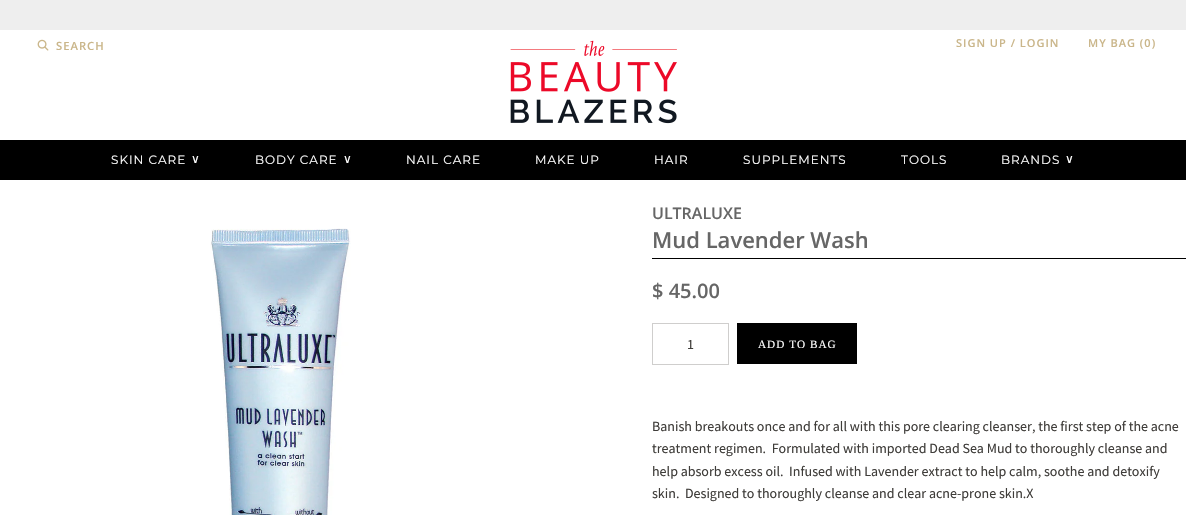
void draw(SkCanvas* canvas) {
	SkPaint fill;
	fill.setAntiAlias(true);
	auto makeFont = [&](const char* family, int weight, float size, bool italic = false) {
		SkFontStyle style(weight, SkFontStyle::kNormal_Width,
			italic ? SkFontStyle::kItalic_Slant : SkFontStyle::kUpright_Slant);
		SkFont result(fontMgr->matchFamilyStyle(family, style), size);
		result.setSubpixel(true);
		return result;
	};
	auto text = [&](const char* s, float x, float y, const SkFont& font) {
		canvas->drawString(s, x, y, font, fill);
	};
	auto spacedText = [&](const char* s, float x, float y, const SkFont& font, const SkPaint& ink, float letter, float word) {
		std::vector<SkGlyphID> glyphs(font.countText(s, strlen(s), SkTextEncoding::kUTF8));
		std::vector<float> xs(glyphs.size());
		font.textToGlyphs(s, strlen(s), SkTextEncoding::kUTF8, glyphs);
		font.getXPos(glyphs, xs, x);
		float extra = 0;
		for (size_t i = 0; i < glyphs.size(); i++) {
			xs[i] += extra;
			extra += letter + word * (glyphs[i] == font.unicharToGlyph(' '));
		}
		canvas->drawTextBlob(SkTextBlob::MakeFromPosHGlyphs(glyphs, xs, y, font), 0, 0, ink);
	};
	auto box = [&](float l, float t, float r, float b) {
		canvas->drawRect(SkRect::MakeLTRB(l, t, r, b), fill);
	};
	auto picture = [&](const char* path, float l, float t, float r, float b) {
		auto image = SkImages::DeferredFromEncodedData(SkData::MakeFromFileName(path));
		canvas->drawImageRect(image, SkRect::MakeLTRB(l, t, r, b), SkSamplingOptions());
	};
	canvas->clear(0xFFFFFFFF);
	fill.setColor(0xFFEEEEEE);
	box(0, 0, 1186, 30);
	picture("image0.png", 37, 39, 49, 51);
	picture("image1.png", 510, 40, 677, 124);
	fill.setColor(0xFF000000);
	box(0, 140, 1186, 180);
	picture("image2.png", 210, 228, 351, 515);
	box(652, 258, 1186, 259);
	fill.setStyle(SkPaint::kStroke_Style);
	fill.setStrokeWidth(1);
	fill.setColor(0xFFCFCECD);
	canvas->drawRect(SkRect::MakeLTRB(652.5f, 323.5f, 728.5f, 364.5f), fill);
	fill.setStyle(SkPaint::kFill_Style);
	fill.setColor(0xFF000000);
	box(737, 323, 857, 364);
	auto font1 = makeFont("Open Sans", 600, 11.25f);
	fill.setColor(0xFFCAB68A);
	spacedText("SEARCH", 56, 50, font1, fill, 1, 0);
	auto font2 = makeFont("Open Sans", 600, 11);
	spacedText("SIGN UP / LOGIN", 956, 47, font2, fill, 1, 0);
	spacedText("MY BAG (0)", 1088, 47, font2, fill, 1, 0);
	auto font3 = makeFont("Montserrat", 400, 12);
	fill.setColor(0xFFFFFFFF);
	spacedText("SKIN CARE", 111, 164, font3, fill, 1, 0);
	auto font4 = makeFont("DejaVu Sans", 400, 12);
	spacedText("∨", 191, 163, font4, fill, 1, 0);
	spacedText("BODY CARE", 255, 164, font3, fill, 1, 0);
	spacedText("∨", 343, 163, font4, fill, 1, 0);
	spacedText("NAIL CARE", 406, 164, font3, fill, 1, 0);
	spacedText("MAKE UP", 535, 164, font3, fill, 1, 0);
	spacedText("HAIR", 654, 164, font3, fill, 1, 0);
	spacedText("SUPPLEMENTS", 743, 164, font3, fill, 1, 0);
	spacedText("TOOLS", 901, 164, font3, fill, 1, 0);
	spacedText("BRANDS", 1001, 164, font3, fill, 1, 0);
	spacedText("∨", 1065, 163, font4, fill, 1, 0);
	auto font5 = makeFont("Open Sans", 600, 16);
	fill.setColor(0xFF666666);
	text("ULTRALUXE", 652, 219, font5);
	auto font6 = makeFont("Open Sans", 600, 22);
	text("Mud Lavender Wash", 652, 248, font6);
	auto font7 = makeFont("Open Sans", 600, 20);
	text("$ 45.00", 652, 298, font7);
	auto font8 = makeFont("Source Sans Pro", 400, 14);
	fill.setColor(0xFF3F3D3A);
	text("1", 687, 349, font8);
	auto font9 = makeFont("Liberation Serif", 400, 11.25f);
	fill.setColor(0xFFFFFFFF);
	spacedText("ADD TO BAG", 758, 348, font9, fill, 1, 0);
	fill.setColor(0xFF3F3D3A);
	text("Banish breakouts once and for all with this pore clearing cleanser, the first step of the acne", 652, 431, font8);
	text("treatment regimen.  Formulated with imported Dead Sea Mud to thoroughly cleanse and", 652, 453, font8);
	text("help absorb excess oil.  Infused with Lavender extract to help calm, soothe and detoxify", 652, 476, font8);
	text("skin.  Designed to thoroughly cleanse and clear acne-prone skin.X", 652, 498, font8);
}
